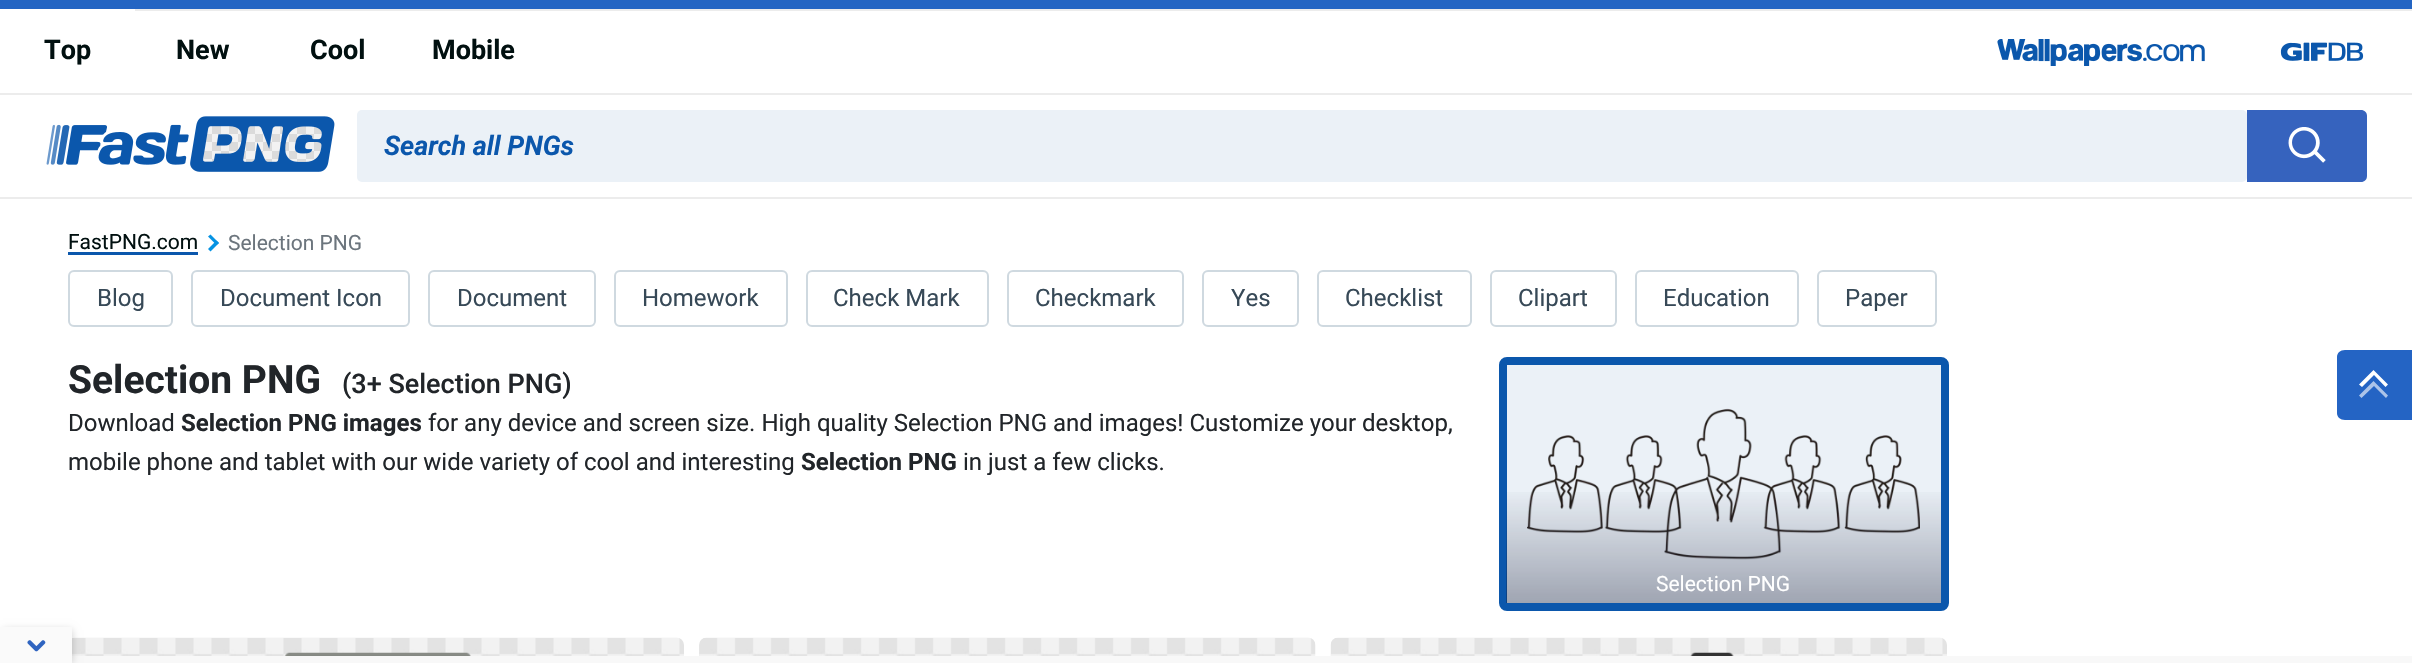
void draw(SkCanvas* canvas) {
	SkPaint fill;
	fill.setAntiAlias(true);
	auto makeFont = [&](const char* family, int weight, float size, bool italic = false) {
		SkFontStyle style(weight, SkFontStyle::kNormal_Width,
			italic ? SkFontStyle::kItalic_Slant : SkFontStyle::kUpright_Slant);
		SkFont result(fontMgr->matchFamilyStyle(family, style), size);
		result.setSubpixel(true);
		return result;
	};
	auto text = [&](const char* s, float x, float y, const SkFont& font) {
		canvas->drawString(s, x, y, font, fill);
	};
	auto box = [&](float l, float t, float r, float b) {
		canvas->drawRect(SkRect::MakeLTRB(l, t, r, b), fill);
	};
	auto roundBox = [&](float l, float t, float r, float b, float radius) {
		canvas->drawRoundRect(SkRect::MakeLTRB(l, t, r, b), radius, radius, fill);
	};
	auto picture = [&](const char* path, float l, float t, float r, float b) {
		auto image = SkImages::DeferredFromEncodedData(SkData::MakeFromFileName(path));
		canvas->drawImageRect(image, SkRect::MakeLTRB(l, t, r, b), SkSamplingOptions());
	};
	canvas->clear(0xFFFFFFFF);
	fill.setColor(0xFF2465C3);
	box(0, 0, 2412, 9);
	fill.setColor(0xFFECECEC);
	box(0, 93, 2412, 95);
	box(135, 9, 2412, 11);
	picture("image0.png", 1997, 39, 2205, 66);
	picture("image1.png", 2280, 42, 2364, 61);
	box(0, 197, 2412, 199);
	picture("image2.png", 46, 116, 335, 172);
	fill.setColor(0xFFEBF1F7);
	roundBox(357, 110, 2247, 182, 5);
	fill.setColor(0xFF3663BE);
	canvas->drawPath(SkPathBuilder().moveTo(2247, 110).lineTo(2361, 110).cubicTo(2364.5f, 110, 2367, 112.5f, 2367, 116).lineTo(2367, 176).cubicTo(2367, 179.5f, 2364.5f, 182, 2361, 182).lineTo(2247, 182).close().detach(), fill);
	picture("image3.png", 2288, 127, 2326, 163);
	fill.setColor(0xFF0B57AC);
	box(68, 252, 198, 255);
	fill.setColor(0xFF0693E3);
	canvas->drawPath(SkPathBuilder().moveTo(210.5f, 234.5f).lineTo(219, 243).lineTo(216.5f, 245).lineTo(208, 236.5f).close().detach(), fill);
	canvas->drawPath(SkPathBuilder().moveTo(216.5f, 240.5f).lineTo(219, 243).lineTo(210.5f, 251.5f).lineTo(208, 249).close().detach(), fill);
	fill.setStyle(SkPaint::kStroke_Style);
	fill.setStrokeWidth(2);
	fill.setColor(0xFFCFD9E0);
	canvas->drawRoundRect(SkRect::MakeLTRB(69, 271, 172, 326), 5, 5, fill);
	canvas->drawRoundRect(SkRect::MakeLTRB(192, 271, 409, 326), 5, 5, fill);
	canvas->drawRoundRect(SkRect::MakeLTRB(429, 271, 595, 326), 5, 5, fill);
	canvas->drawRoundRect(SkRect::MakeLTRB(615, 271, 787, 326), 5, 5, fill);
	canvas->drawRoundRect(SkRect::MakeLTRB(807, 271, 988, 326), 5, 5, fill);
	canvas->drawRoundRect(SkRect::MakeLTRB(1008, 271, 1183, 326), 5, 5, fill);
	canvas->drawRoundRect(SkRect::MakeLTRB(1203, 271, 1298, 326), 5, 5, fill);
	canvas->drawRoundRect(SkRect::MakeLTRB(1318, 271, 1471, 326), 5, 5, fill);
	canvas->drawRoundRect(SkRect::MakeLTRB(1491, 271, 1616, 326), 5, 5, fill);
	canvas->drawRoundRect(SkRect::MakeLTRB(1636, 271, 1798, 326), 5, 5, fill);
	canvas->drawRoundRect(SkRect::MakeLTRB(1818, 271, 1936, 326), 5, 5, fill);
	fill.setStyle(SkPaint::kFill_Style);
	fill.setColor(0xFFEBF1F7);
	canvas->drawRoundRect(SkRect::MakeLTRB(1503, 361, 1945, 607), 4, 4, fill);
	fill.setStyle(SkPaint::kStroke_Style);
	fill.setStrokeWidth(8);
	fill.setColor(0xFF0B57AC);
	canvas->drawRoundRect(SkRect::MakeLTRB(1503, 361, 1945, 607), 4, 4, fill);
	picture("image4.png", 1527, 408, 1920, 560);
	fill.setStyle(SkPaint::kFill_Style);
	{
		const SkColor colors[] = {0x00121732, 0x59121732};
		const float stops[] = {0, 1};
		const SkPoint ends[] = {{1724, 485}, {1724, 603}};
		fill.setShader(SkGradientShader::MakeLinear(ends, colors, stops, 2, SkTileMode::kClamp));
		fill.setAlpha(255);
	}
	box(1506, 492, 1941, 603);
	picture("image5.png", 72, 637, 684, 656);
	picture("image6.png", 284, 652, 471, 656);
	picture("image7.png", 699, 637, 1316, 656);
	picture("image8.png", 1330, 637, 1947, 656);
	picture("image9.png", 1690, 652, 1734, 656);
	fill.setShader(nullptr);
	fill.setColor(0xFF2464C4);
	canvas->drawPath(SkPathBuilder(SkPathFillType::kEvenOdd).moveTo(2412, 420).lineTo(2345, 420).cubicTo(2340, 420, 2337, 417, 2337, 413).lineTo(2337, 357).cubicTo(2337, 353, 2340, 350, 2345, 350).lineTo(2412, 350).close().detach(), fill);
	fill.setColor(0xFFFFFFFF);
	canvas->drawPath(SkPathBuilder(SkPathFillType::kEvenOdd).moveTo(2374, 375).lineTo(2362, 387).lineTo(2359, 384.5f).lineTo(2373.5f, 370).lineTo(2388, 384.5f).lineTo(2385.5f, 387).close().detach(), fill);
	fill.setColor(0xFFACC4E9);
	canvas->drawPath(SkPathBuilder(SkPathFillType::kEvenOdd).moveTo(2374, 386).lineTo(2361.5f, 398).lineTo(2359, 395.5f).lineTo(2373.5f, 381).lineTo(2388, 395.5f).lineTo(2386, 398).close().detach(), fill);
	fill.setColor(0xFFF8F8F8);
	box(72, 656, 2412, 663);
	fill.setColor(0x33000000);
	fill.setMaskFilter(SkMaskFilter::MakeBlur(kNormal_SkBlurStyle, 4));
	canvas->drawRect(SkRect::MakeLTRB(3, 630, 72, 663), fill);
	fill.setMaskFilter(nullptr);
	fill.setColor(0xFFFAFAFA);
	box(0, 627, 72, 663);
	picture("image10.png", 27, 640, 46, 652);
	auto font1 = makeFont("Roboto", 700, 27);
	fill.setColor(0xFF011010);
	text("Top", 44, 59, font1);
	text("New", 176, 59, font1);
	text("Cool", 310, 59, font1);
	text("Mobile", 432, 59, font1);
	auto font2 = makeFont("Roboto", 700, 27, true);
	fill.setColor(0xFF0B57AC);
	text("Search all PNGs", 384, 155, font2);
	auto font3 = makeFont("Roboto", 400, 21);
	fill.setColor(0xFF011010);
	text("FastPNG.com", 68, 249, font3);
	fill.setColor(0xFF6C757D);
	text("Selection PNG", 228, 250, font3);
	auto font4 = makeFont("Roboto", 400, 24);
	fill.setColor(0xFF374957);
	text("Blog", 97, 306, font4);
	text("Document Icon", 220, 306, font4);
	text("Document", 457, 306, font4);
	text("Homework", 642, 306, font4);
	text("Check Mark", 833, 306, font4);
	text("Checkmark", 1035, 306, font4);
	text("Yes", 1231, 306, font4);
	text("Checklist", 1345, 306, font4);
	text("Clipart", 1518, 306, font4);
	text("Education", 1663, 306, font4);
	text("Paper", 1845, 306, font4);
	auto font5 = makeFont("Roboto", 700, 39);
	fill.setColor(0xFF212529);
	text("Selection PNG", 68, 393, font5);
	auto font6 = makeFont("Roboto", 500, 27);
	text("(3+ Selection PNG)", 342, 393, font6);
	text("Download", 68, 431, font4);
	auto font7 = makeFont("Roboto", 700, 24);
	text("Selection PNG images", 181, 431, font7);
	text("for any device and screen size. High quality Selection PNG and images! Customize your desktop,", 428, 431, font4);
	text("mobile phone and tablet with our wide variety of cool and interesting", 68, 470, font4);
	text("Selection PNG", 801, 470, font7);
	text("in just a few clicks.", 963, 470, font4);
	fill.setColor(0xFFFFFFFF);
	text("Selection PNG", 1656, 591, font3);
}
